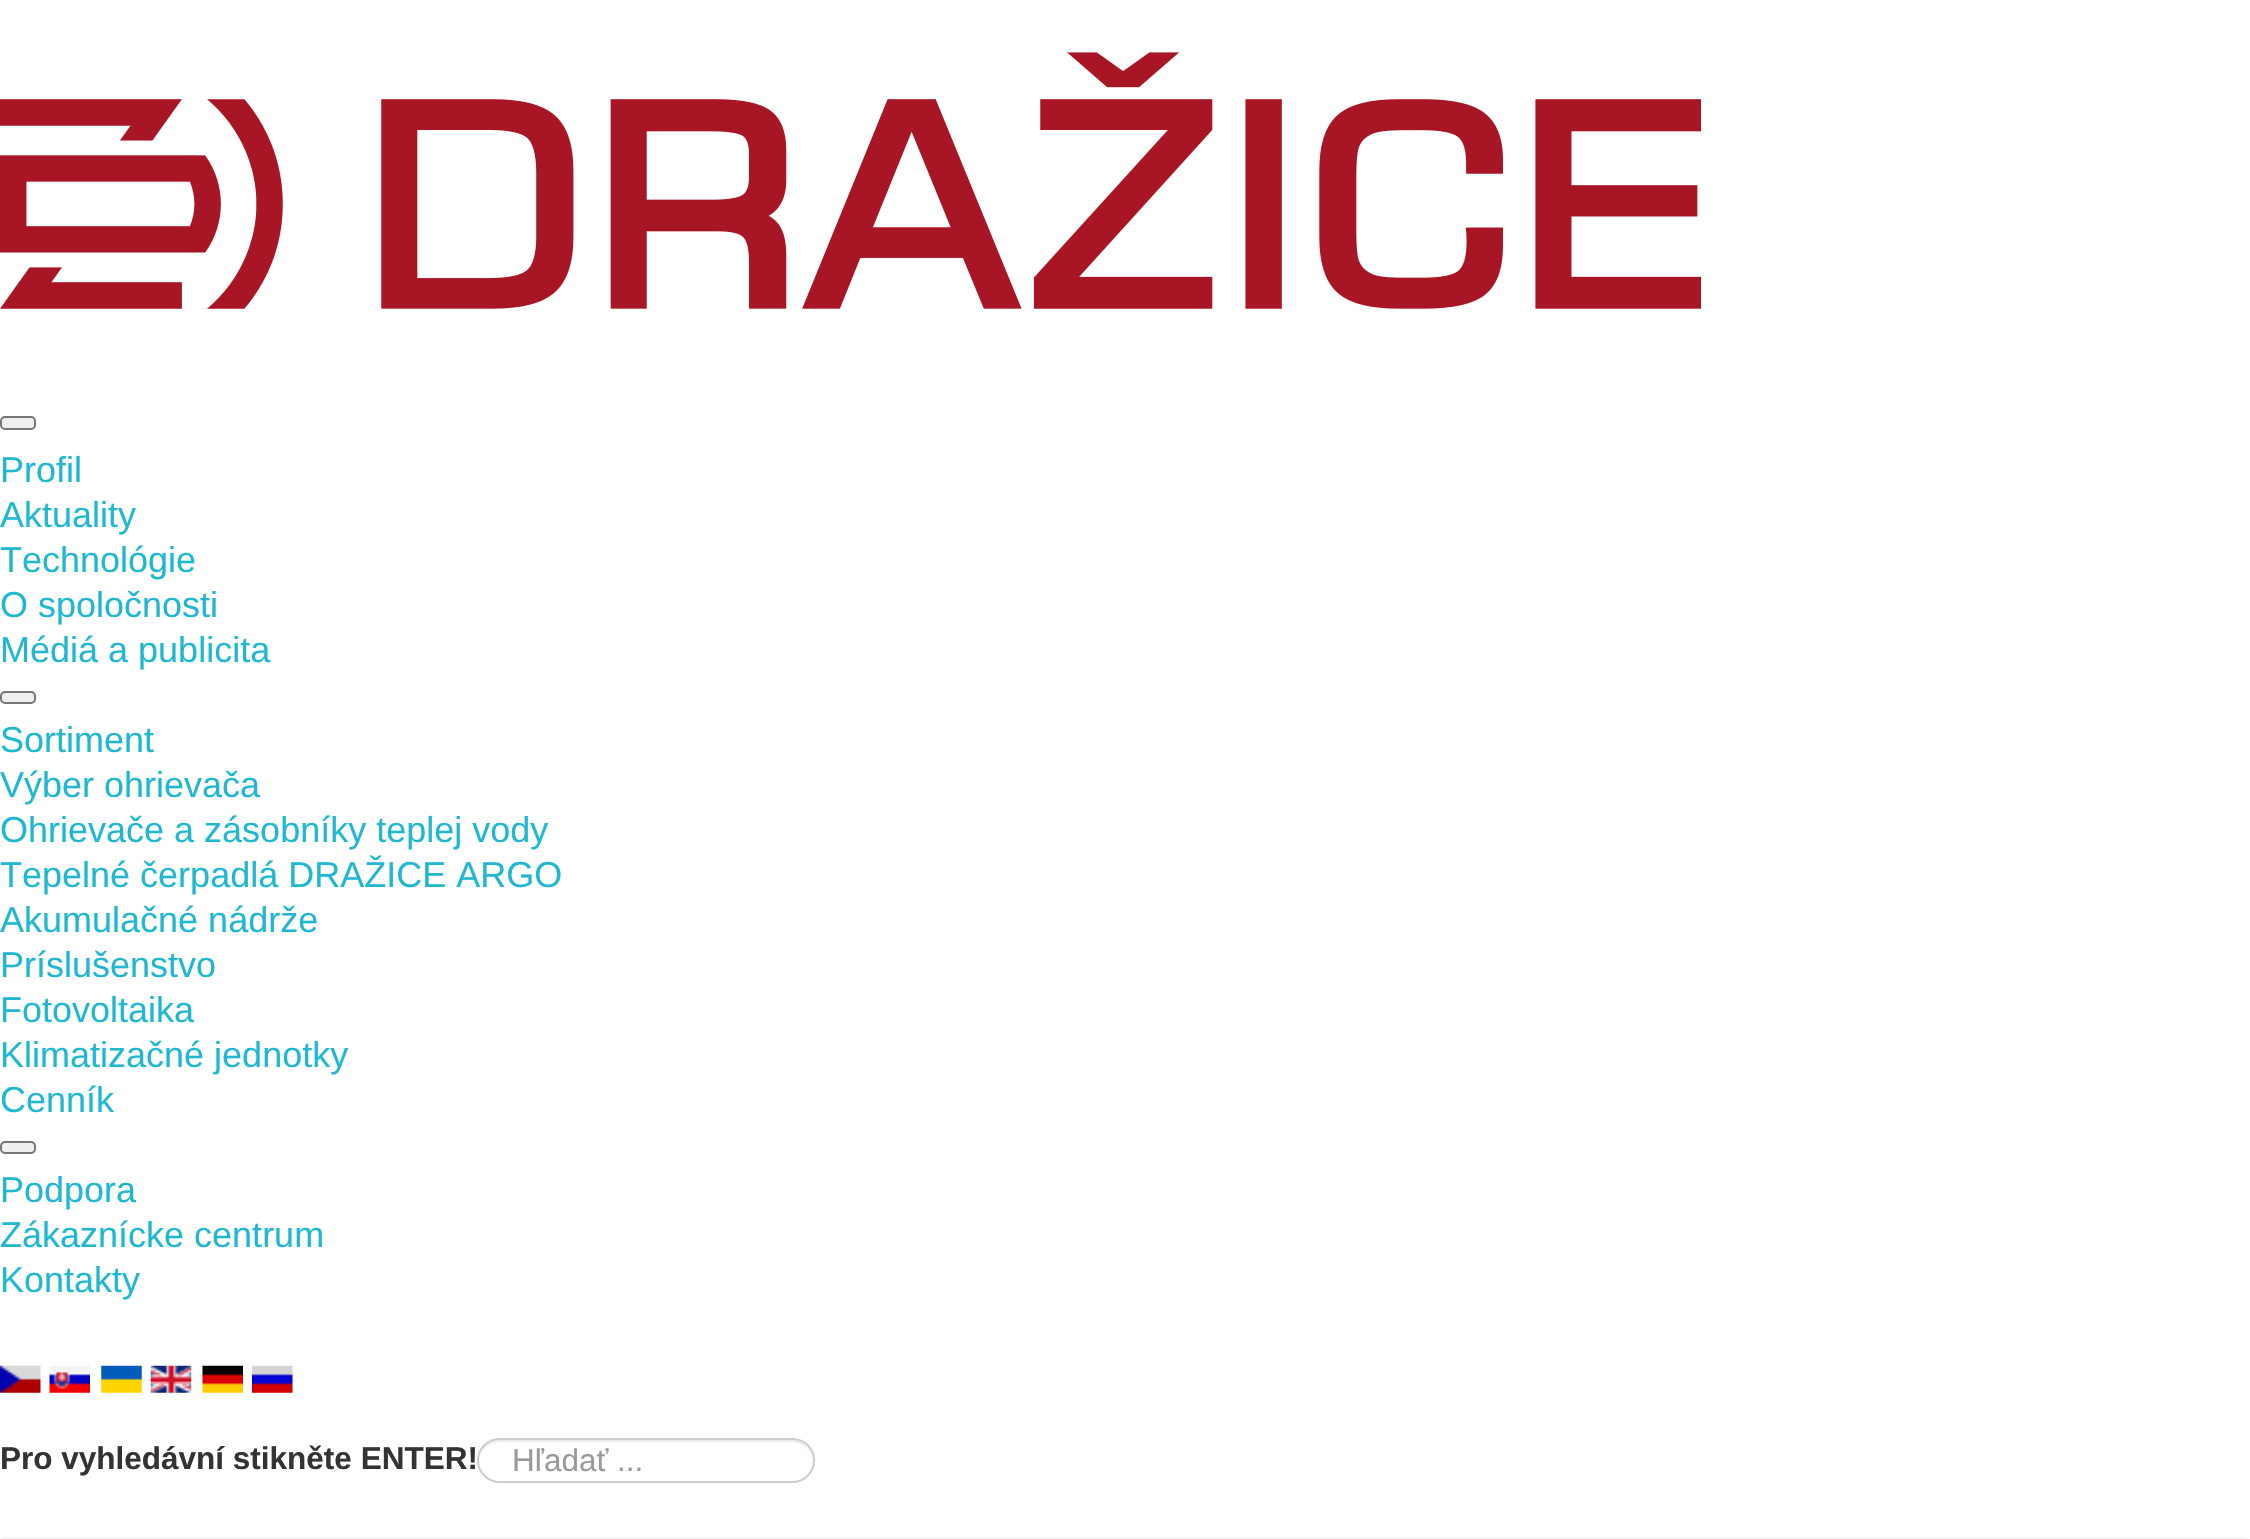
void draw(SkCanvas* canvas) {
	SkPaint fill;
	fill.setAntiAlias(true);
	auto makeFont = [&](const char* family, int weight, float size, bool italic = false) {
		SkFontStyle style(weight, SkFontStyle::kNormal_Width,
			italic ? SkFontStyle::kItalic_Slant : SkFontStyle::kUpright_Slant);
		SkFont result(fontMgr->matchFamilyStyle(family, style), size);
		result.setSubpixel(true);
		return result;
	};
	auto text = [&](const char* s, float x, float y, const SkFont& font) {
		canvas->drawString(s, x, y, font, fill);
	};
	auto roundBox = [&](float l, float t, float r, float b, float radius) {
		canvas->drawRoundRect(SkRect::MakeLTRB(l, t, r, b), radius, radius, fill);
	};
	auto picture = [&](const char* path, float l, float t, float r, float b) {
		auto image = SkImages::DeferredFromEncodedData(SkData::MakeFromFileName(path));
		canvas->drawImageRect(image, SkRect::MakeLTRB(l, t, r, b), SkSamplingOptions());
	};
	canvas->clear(0xFFFFFFFF);
	picture("image0.png", 0, 52, 1701, 309);
	fill.setColor(0xFFEFEFEF);
	canvas->drawRoundRect(SkRect::MakeLTRB(1, 417, 35, 429), 4, 4, fill);
	fill.setStyle(SkPaint::kStroke_Style);
	fill.setStrokeWidth(2);
	fill.setColor(0xFF767676);
	canvas->drawRoundRect(SkRect::MakeLTRB(1, 417, 35, 429), 4, 4, fill);
	fill.setStyle(SkPaint::kFill_Style);
	fill.setColor(0xFFEFEFEF);
	canvas->drawRoundRect(SkRect::MakeLTRB(1, 692, 35, 703), 4, 4, fill);
	fill.setStyle(SkPaint::kStroke_Style);
	fill.setColor(0xFF767676);
	canvas->drawRoundRect(SkRect::MakeLTRB(1, 692, 35, 703), 4, 4, fill);
	fill.setStyle(SkPaint::kFill_Style);
	fill.setColor(0xFFEFEFEF);
	canvas->drawRoundRect(SkRect::MakeLTRB(1, 1142, 35, 1153), 4, 4, fill);
	fill.setStyle(SkPaint::kStroke_Style);
	fill.setColor(0xFF767676);
	canvas->drawRoundRect(SkRect::MakeLTRB(1, 1142, 35, 1153), 4, 4, fill);
	picture("image1.png", 0, 1365, 41, 1393);
	picture("image2.png", 49, 1366, 90, 1393);
	picture("image3.png", 101, 1365, 142, 1393);
	picture("image4.png", 150, 1365, 192, 1393);
	picture("image5.png", 202, 1365, 243, 1393);
	picture("image6.png", 252, 1365, 293, 1393);
	fill.setStyle(SkPaint::kFill_Style);
	fill.setColor(0xFFECECEC);
	canvas->drawPath(SkPathBuilder().moveTo(500, 1442).lineTo(792, 1442).cubicTo(803, 1442, 812, 1451, 812, 1461).cubicTo(812, 1450, 803, 1440, 792, 1440).lineTo(500, 1440).cubicTo(488, 1440, 479, 1450, 479, 1461).cubicTo(479, 1451, 488, 1442, 500, 1442).close().detach(), fill);
	fill.setStyle(SkPaint::kStroke_Style);
	fill.setColor(0xFFCCCCCC);
	canvas->drawRoundRect(SkRect::MakeLTRB(478, 1439, 814, 1482), 21.5f, 21.5f, fill);
	fill.setStyle(SkPaint::kFill_Style);
	fill.setColor(0xFFF5F5F5);
	roundBox(0, 1537, 2250, 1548, 9);
	auto font1 = makeFont("Liberation Sans", 400, 36);
	fill.setColor(0xFF1FB8D0);
	text("Profil", 0, 482, font1);
	text("Aktuality", 0, 527, font1);
	text("Technológie", 0, 572, font1);
	text("O spoločnosti", 0, 617, font1);
	text("Médiá a publicita", 0, 662, font1);
	text("Sortiment", 0, 752, font1);
	text("Výber ohrievača", 0, 797, font1);
	text("Ohrievače a zásobníky teplej vody", 0, 842, font1);
	text("Tepelné čerpadlá DRAŽICE ARGO", 0, 887, font1);
	text("Akumulačné nádrže", 0, 932, font1);
	text("Príslušenstvo", 0, 977, font1);
	text("Fotovoltaika", 0, 1022, font1);
	text("Klimatizačné jednotky", 0, 1067, font1);
	text("Cenník", 0, 1112, font1);
	text("Podpora", 0, 1202, font1);
	text("Zákaznícke centrum", 0, 1247, font1);
	text("Kontakty", 0, 1292, font1);
	auto font2 = makeFont("Liberation Sans", 700, 31.5f);
	fill.setColor(0xFF333333);
	text("Pro vyhledávní stikněte ENTER!", 0, 1469, font2);
	auto font3 = makeFont("Liberation Sans", 400, 31.5f);
	fill.setColor(0xFF999999);
	text("Hľadať ...", 512, 1471, font3);
}
